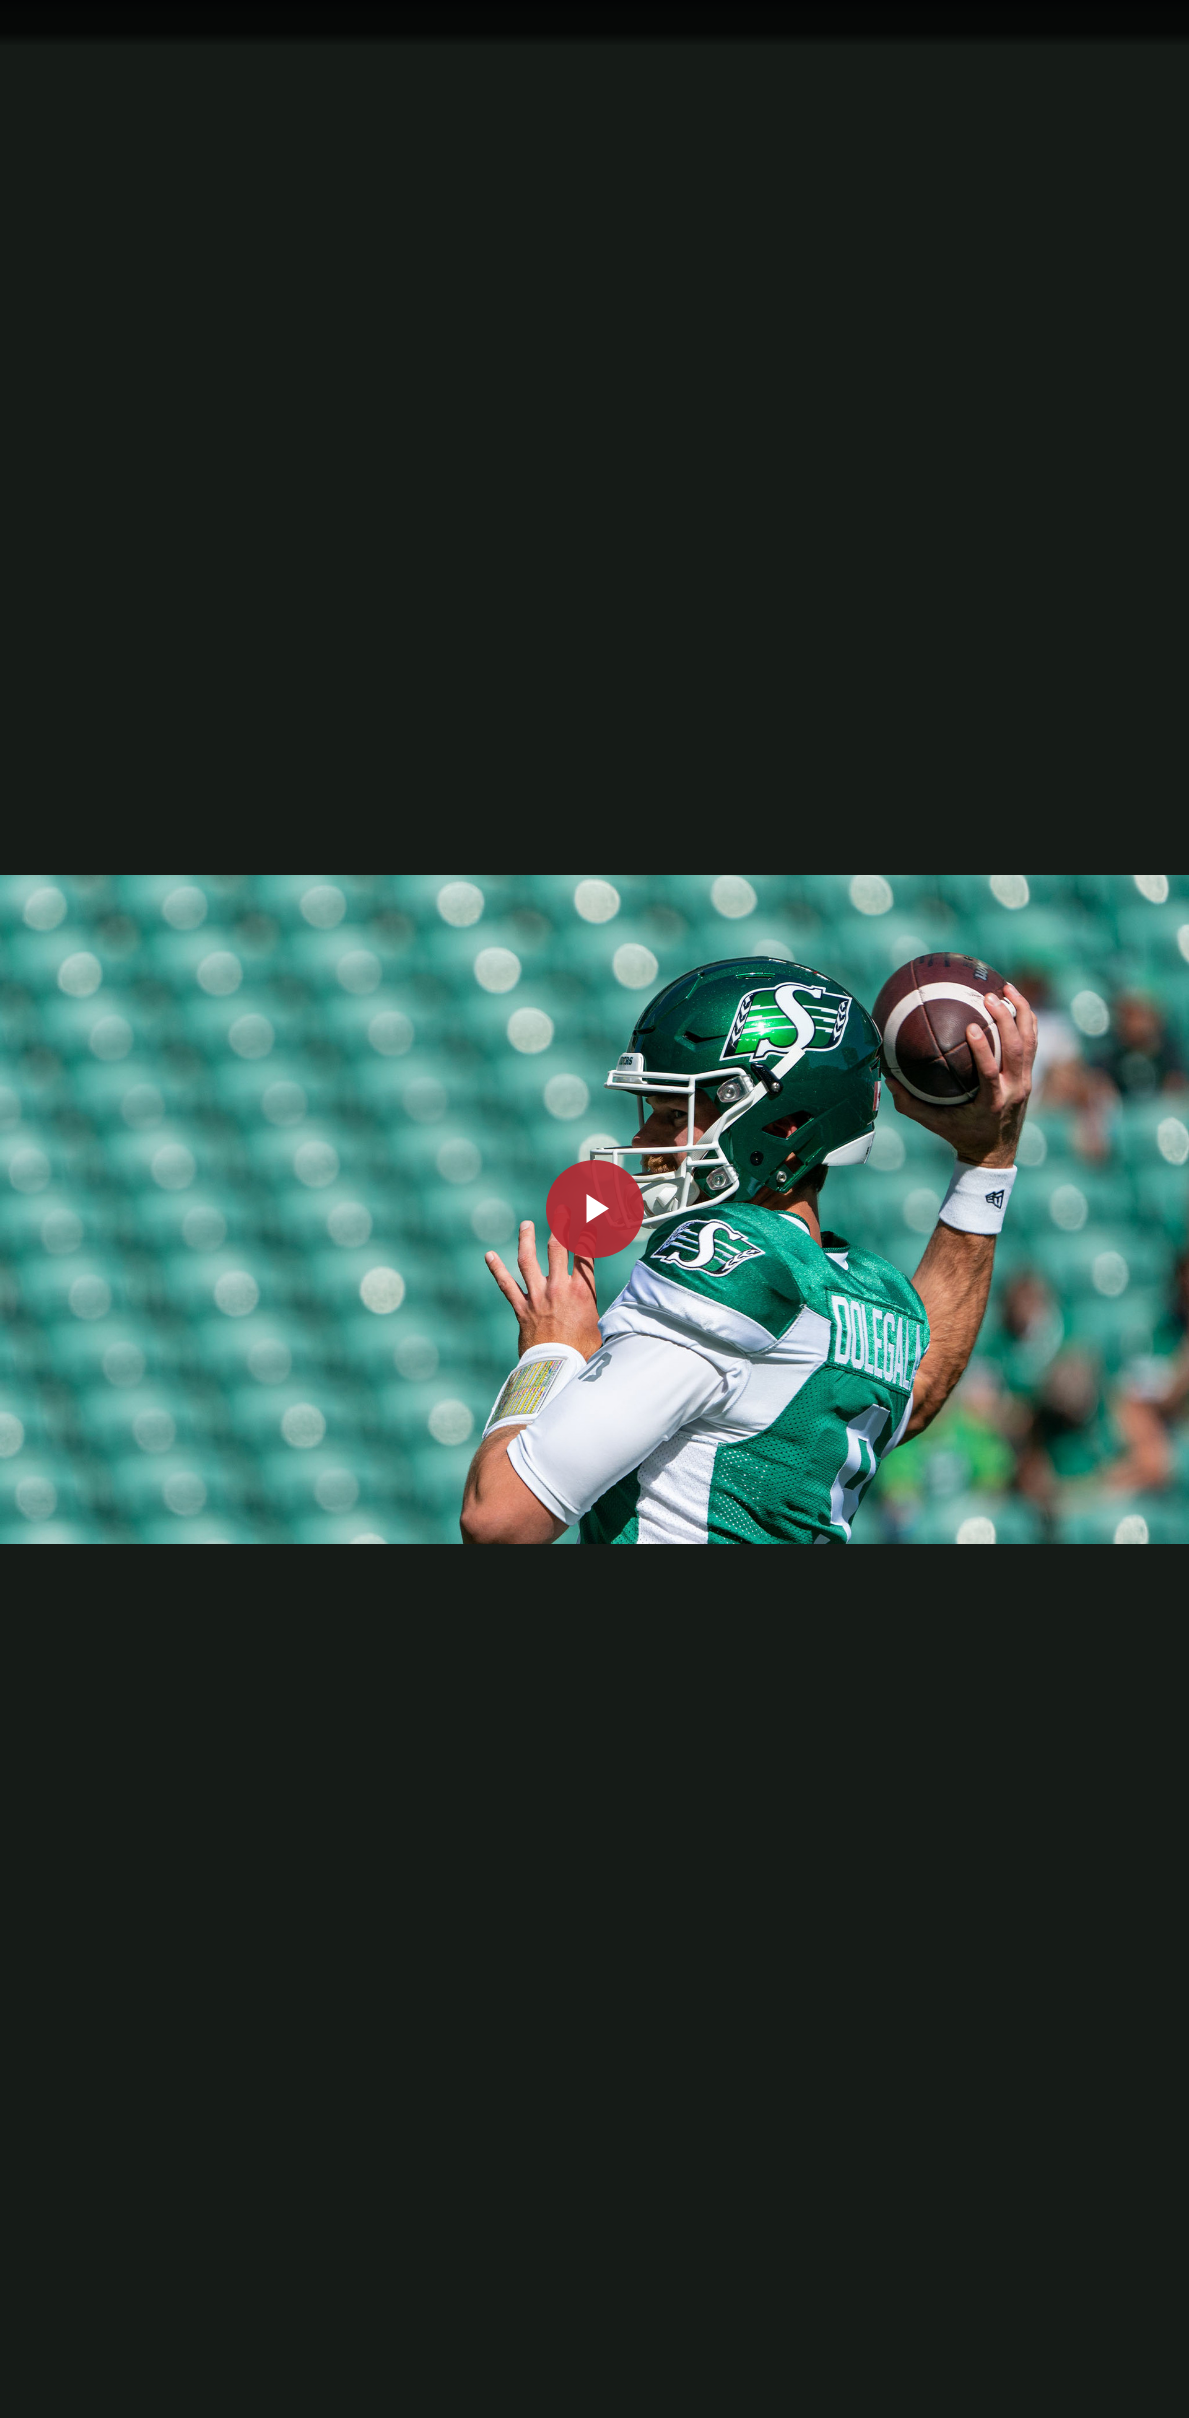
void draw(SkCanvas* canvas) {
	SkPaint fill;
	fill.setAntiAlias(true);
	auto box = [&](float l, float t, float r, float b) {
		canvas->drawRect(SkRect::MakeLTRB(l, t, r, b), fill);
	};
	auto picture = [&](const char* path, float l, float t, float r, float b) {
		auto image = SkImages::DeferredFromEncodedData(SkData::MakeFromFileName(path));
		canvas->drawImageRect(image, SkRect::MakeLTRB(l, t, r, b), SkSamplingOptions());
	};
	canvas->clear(0xFF151B17);
	{
		const SkColor colors[] = {0xFF040505, 0xFF060807, 0xFF060807, 0xFF151B17};
		const float stops[] = {0, 0.3f, 0.7f, 1};
		const SkPoint ends[] = {{595, 0}, {595, 47}};
		fill.setShader(SkGradientShader::MakeLinear(ends, colors, stops, 4, SkTileMode::kClamp));
		fill.setAlpha(255);
	}
	box(0, 0, 1189, 45);
	picture("image0.png", 0, 875, 1189, 1544);
	fill.setShader(nullptr);
	fill.setColor(0xE6B52630);
	canvas->drawCircle(595, 1209, 49, fill);
	fill.setColor(0xFFFFFFFF);
	canvas->drawPath(SkPathBuilder().moveTo(586.5f, 1194).lineTo(586.5f, 1223).lineTo(609, 1208.5f).close().detach(), fill);
}
